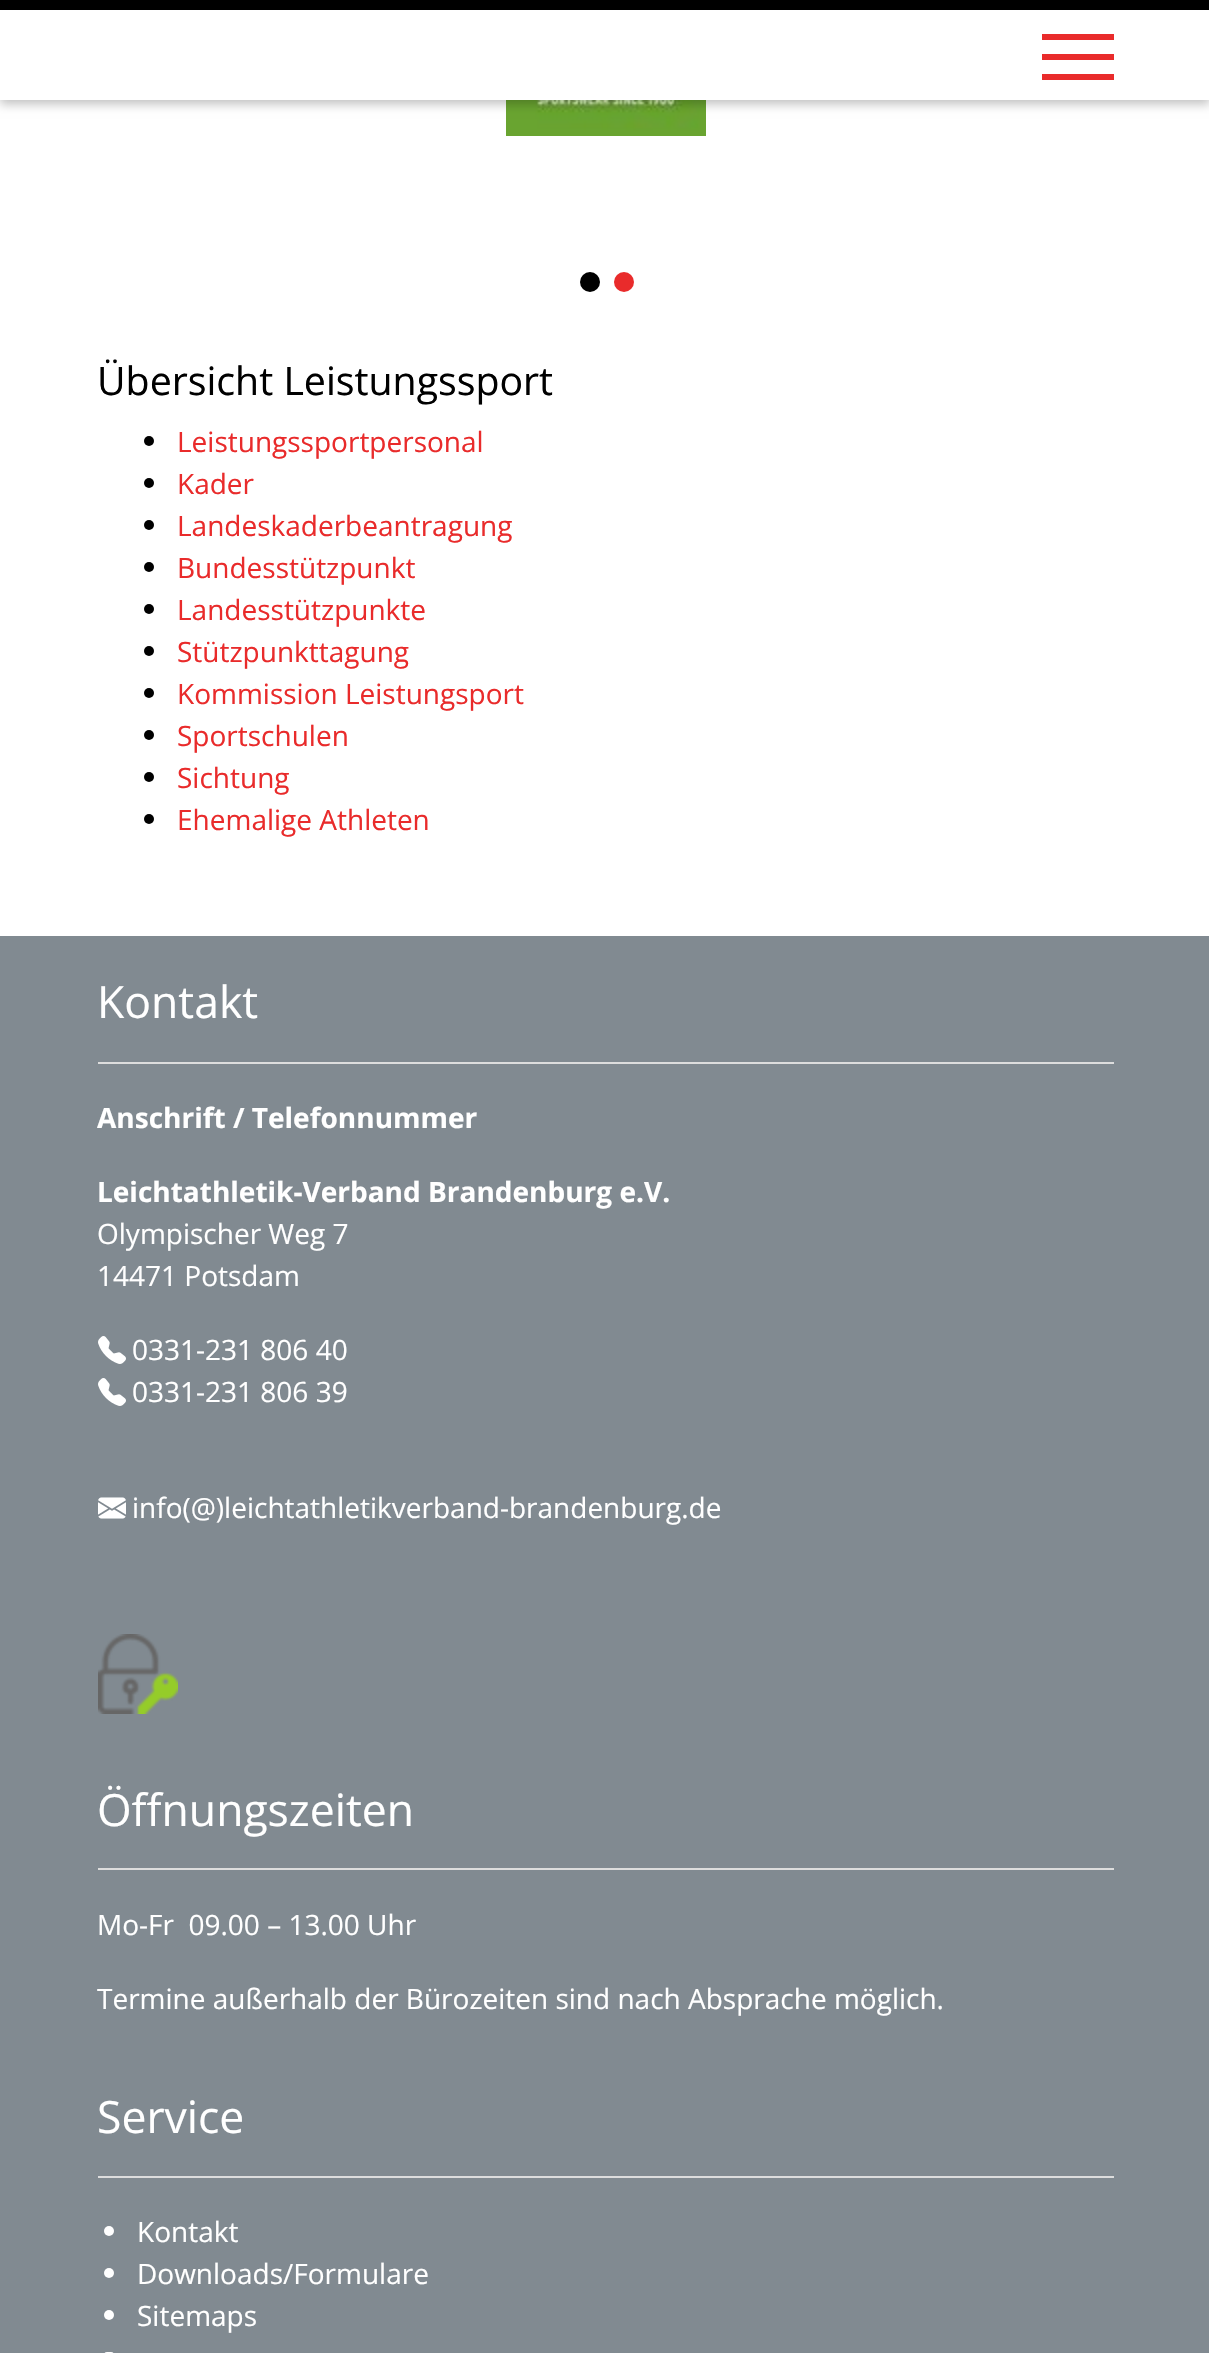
void draw(SkCanvas* canvas) {
	SkPaint fill;
	fill.setAntiAlias(true);
	auto makeFont = [&](const char* family, int weight, float size, bool italic = false) {
		SkFontStyle style(weight, SkFontStyle::kNormal_Width,
			italic ? SkFontStyle::kItalic_Slant : SkFontStyle::kUpright_Slant);
		SkFont result(fontMgr->matchFamilyStyle(family, style), size);
		result.setSubpixel(true);
		return result;
	};
	auto text = [&](const char* s, float x, float y, const SkFont& font) {
		canvas->drawString(s, x, y, font, fill);
	};
	auto box = [&](float l, float t, float r, float b) {
		canvas->drawRect(SkRect::MakeLTRB(l, t, r, b), fill);
	};
	auto roundBox = [&](float l, float t, float r, float b, float radius) {
		canvas->drawRoundRect(SkRect::MakeLTRB(l, t, r, b), radius, radius, fill);
	};
	auto picture = [&](const char* path, float l, float t, float r, float b) {
		auto image = SkImages::DeferredFromEncodedData(SkData::MakeFromFileName(path));
		canvas->drawImageRect(image, SkRect::MakeLTRB(l, t, r, b), SkSamplingOptions());
	};
	canvas->clear(0xFFFFFFFF);
	picture("image0.png", 506, 100, 706, 136);
	fill.setColor(0x40000000);
	fill.setMaskFilter(SkMaskFilter::MakeBlur(kNormal_SkBlurStyle, 5));
	canvas->drawRect(SkRect::MakeLTRB(0, 4, 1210, 104), fill);
	fill.setMaskFilter(nullptr);
	fill.setColor(0xFFFFFFFF);
	box(0, 10, 1209, 100);
	fill.setColor(0xFF000000);
	box(0, 0, 1209, 10);
	fill.setColor(0xFFE92B2B);
	box(1042, 34, 1114, 40);
	box(1042, 54, 1114, 60);
	box(1042, 74, 1114, 80);
	fill.setColor(0xFF000000);
	canvas->drawCircle(590, 282, 10, fill);
	fill.setColor(0xFFE92B2B);
	canvas->drawCircle(624, 282, 10, fill);
	fill.setColor(0xFF000000);
	canvas->drawCircle(149, 441, 5, fill);
	canvas->drawCircle(149, 483, 5, fill);
	canvas->drawCircle(149, 525, 5, fill);
	canvas->drawCircle(149, 567, 5, fill);
	canvas->drawCircle(149, 609, 5, fill);
	canvas->drawCircle(149, 651, 5, fill);
	canvas->drawCircle(149, 693, 5, fill);
	canvas->drawCircle(149, 735, 5, fill);
	canvas->drawCircle(149, 777, 5, fill);
	canvas->drawCircle(149, 819, 5, fill);
	fill.setColor(0xFF818A91);
	box(0, 936, 1209, 2353);
	fill.setColor(0xFFDDDDDD);
	box(98, 1062, 1114, 1064);
	picture("image1.png", 98, 1336, 126, 1364);
	picture("image1.png", 98, 1378, 126, 1406);
	picture("image2.png", 98, 1497, 126, 1519);
	picture("image3.png", 98, 1634, 178, 1714);
	box(98, 1868, 1114, 1870);
	box(98, 2176, 1114, 2178);
	fill.setColor(0xFFFFFFFF);
	canvas->drawCircle(109, 2231, 5, fill);
	canvas->drawCircle(109, 2273, 5, fill);
	canvas->drawCircle(109, 2315, 5, fill);
	roundBox(104, 2352, 114, 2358, 5);
	auto font1 = makeFont("Open Sans", 400, 39.25f);
	fill.setColor(0xFF000000);
	text("Übersicht Leistungssport", 97, 395, font1);
	auto font2 = makeFont("Open Sans", 400, 28);
	fill.setColor(0xFFE92B2B);
	text("Leistungssportpersonal", 177, 452, font2);
	text("Kader", 177, 494, font2);
	text("Landeskaderbeantragung", 177, 536, font2);
	text("Bundesstützpunkt", 177, 578, font2);
	text("Landesstützpunkte", 177, 620, font2);
	text("Stützpunkttagung", 177, 662, font2);
	text("Kommission Leistungsport", 177, 704, font2);
	text("Sportschulen", 177, 746, font2);
	text("Sichtung", 177, 788, font2);
	text("Ehemalige Athleten", 177, 830, font2);
	auto font3 = makeFont("Open Sans", 400, 44.5f);
	fill.setColor(0xFFFFFFFF);
	text("Kontakt", 97, 1018, font3);
	auto font4 = makeFont("Open Sans", 700, 28);
	text("Anschrift / Telefonnummer", 97, 1128, font4);
	text("Leichtathletik-Verband Brandenburg e.V.", 97, 1202, font4);
	text("Olympischer Weg 7", 97, 1244, font2);
	text("14471 Potsdam", 97, 1286, font2);
	text("0331-231 806 40", 132, 1360, font2);
	text("0331-231 806 39", 132, 1402, font2);
	text("info(@)leichtathletikverband-brandenburg.de", 132, 1518, font2);
	text("Öffnungszeiten", 97, 1826, font3);
	text("Mo-Fr  09.00 – 13.00 Uhr", 97, 1935, font2);
	text("Termine außerhalb der Bürozeiten sind nach Absprache möglich.", 97, 2009, font2);
	text("Service", 97, 2133, font3);
	text("Kontakt", 137, 2242, font2);
	text("Downloads/Formulare", 137, 2284, font2);
	text("Sitemaps", 137, 2326, font2);
}
